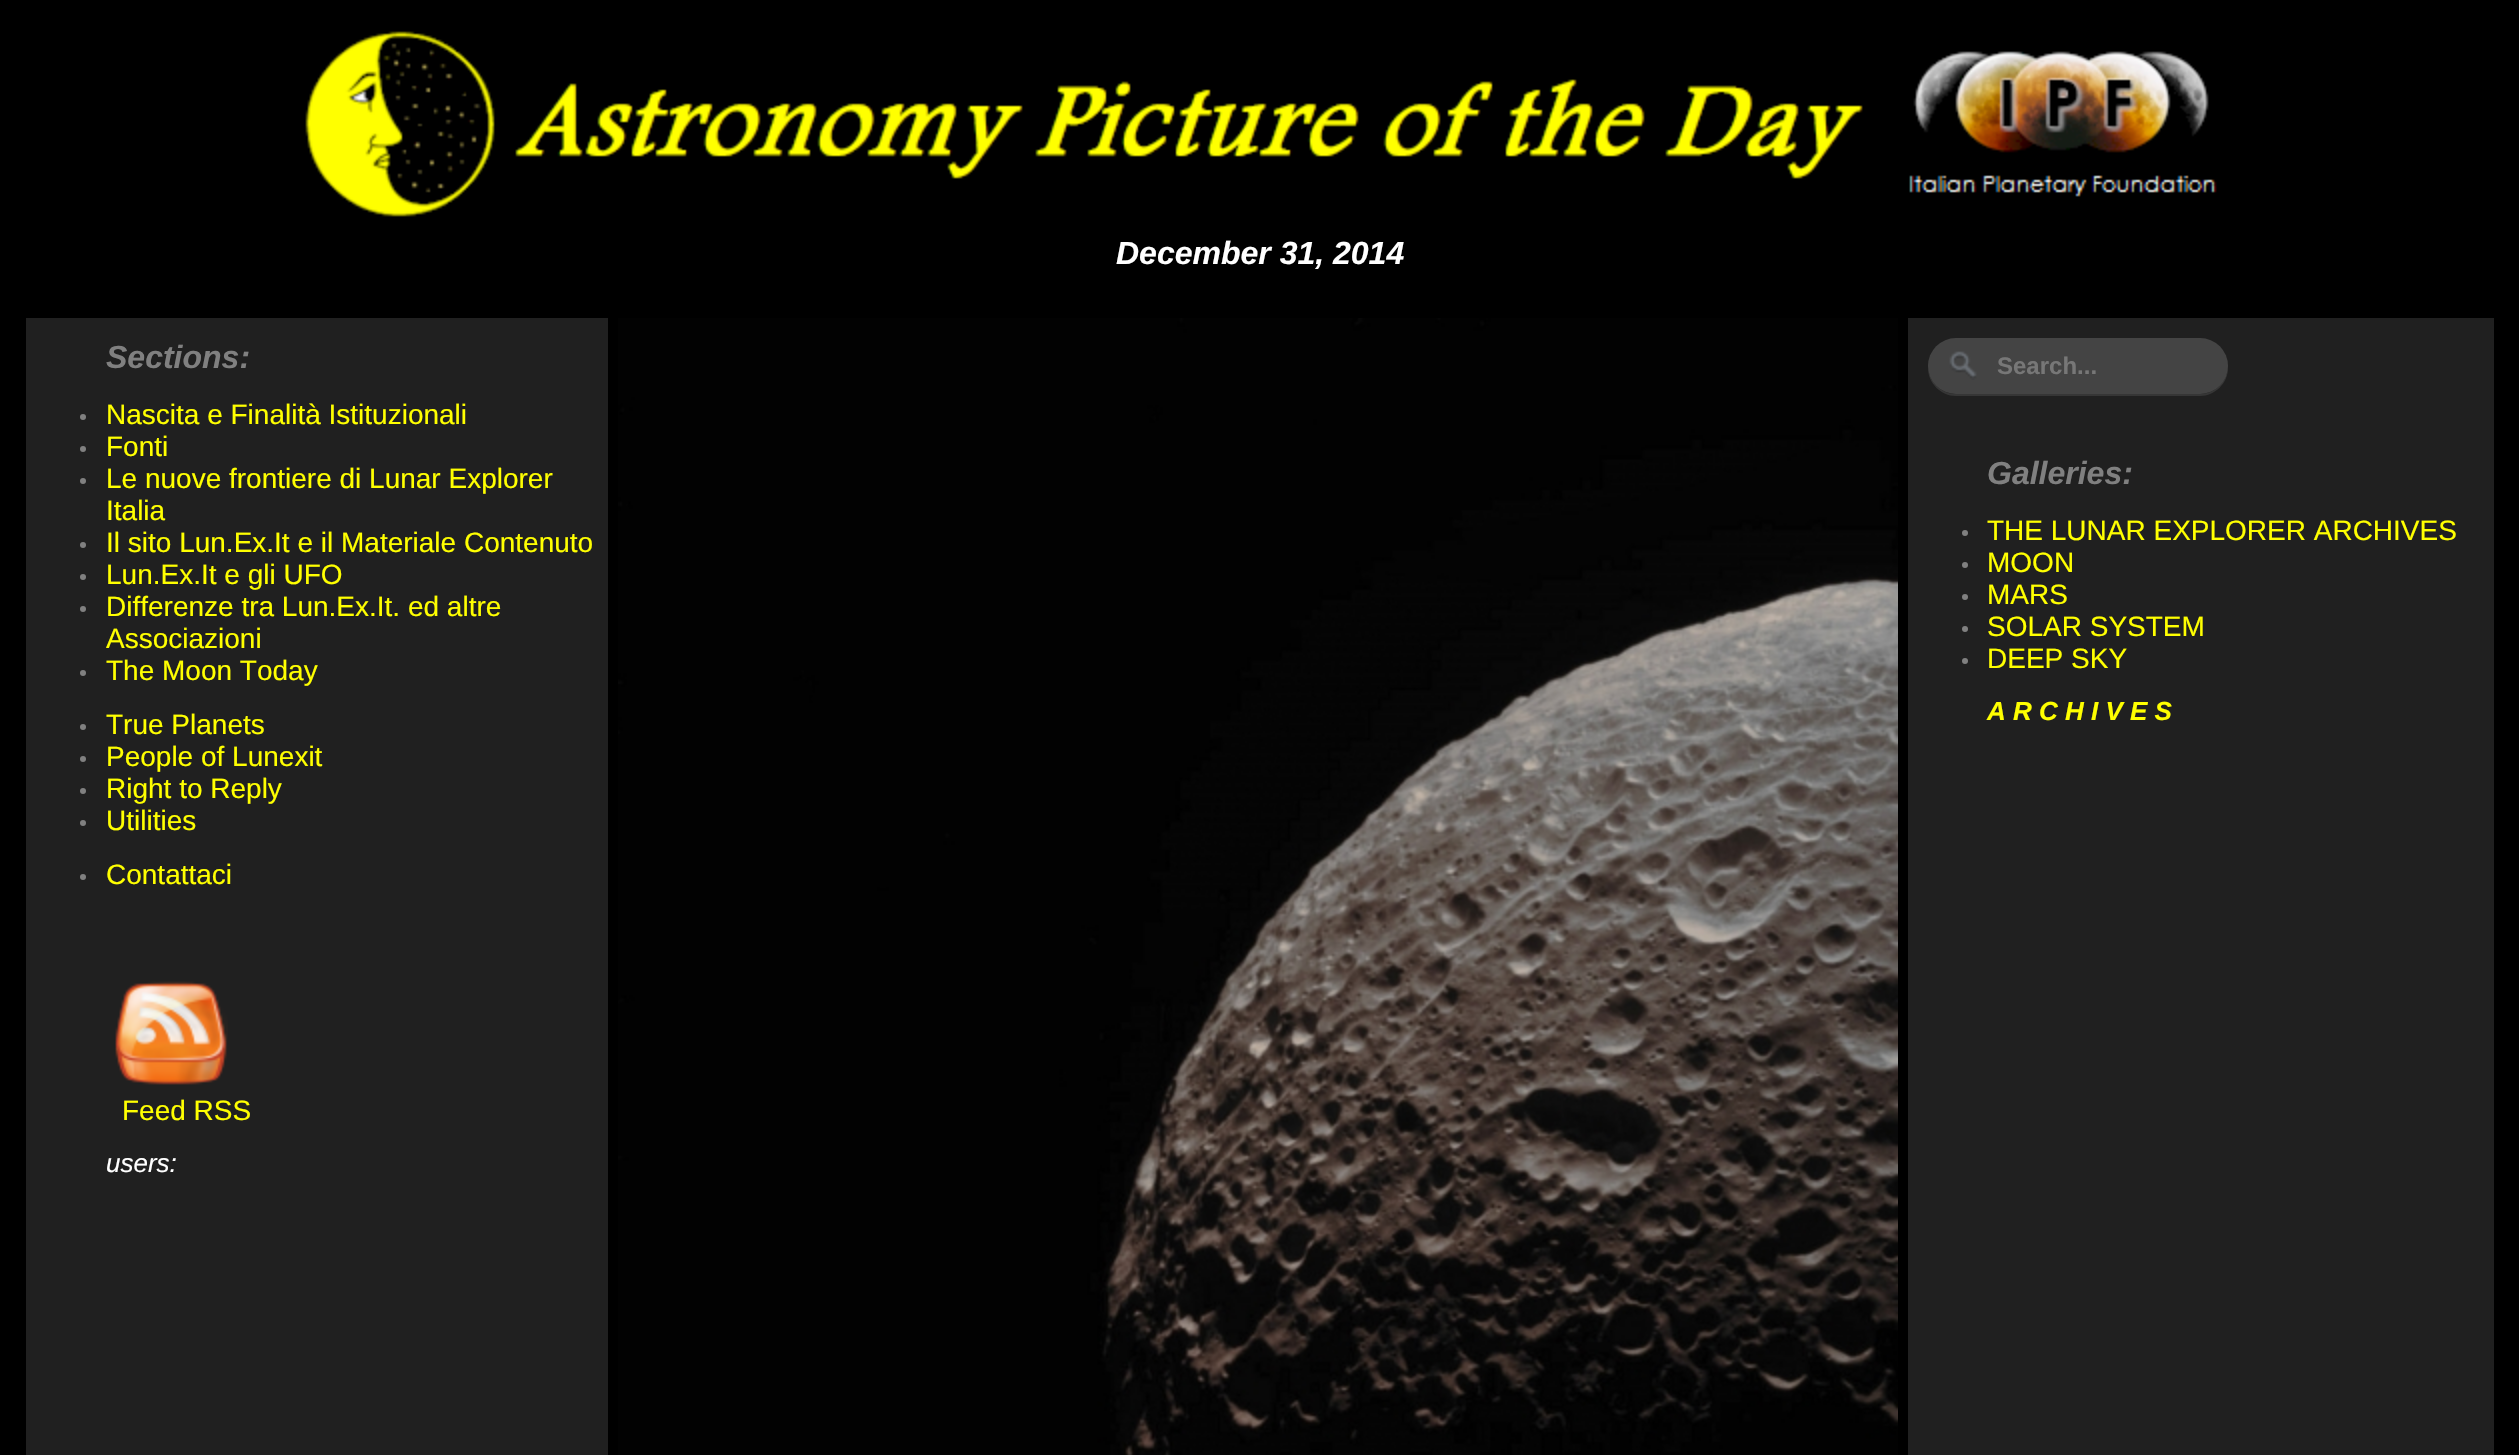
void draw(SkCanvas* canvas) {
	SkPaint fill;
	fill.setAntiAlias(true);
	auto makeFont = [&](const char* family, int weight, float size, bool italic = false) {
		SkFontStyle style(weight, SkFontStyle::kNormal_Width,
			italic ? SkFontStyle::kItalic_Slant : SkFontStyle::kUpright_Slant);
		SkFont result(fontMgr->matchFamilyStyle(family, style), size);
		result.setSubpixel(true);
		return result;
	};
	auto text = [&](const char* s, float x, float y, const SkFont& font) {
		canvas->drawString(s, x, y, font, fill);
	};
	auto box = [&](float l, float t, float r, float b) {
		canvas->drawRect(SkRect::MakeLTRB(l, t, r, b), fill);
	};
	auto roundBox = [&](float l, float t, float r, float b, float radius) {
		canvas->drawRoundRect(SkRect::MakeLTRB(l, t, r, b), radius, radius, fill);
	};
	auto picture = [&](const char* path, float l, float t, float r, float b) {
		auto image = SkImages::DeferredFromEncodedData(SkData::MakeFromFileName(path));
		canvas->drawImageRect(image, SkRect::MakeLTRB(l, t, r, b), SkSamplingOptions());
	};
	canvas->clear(0xFF000000);
	picture("image0.png", 305, 31, 2217, 217);
	fill.setColor(0xFF202020);
	box(26, 318, 608, 1455);
	fill.setColor(0xFF808080);
	canvas->drawCircle(83, 417, 3, fill);
	canvas->drawCircle(83, 449, 3, fill);
	canvas->drawCircle(83, 481, 3, fill);
	canvas->drawCircle(83, 545, 3, fill);
	canvas->drawCircle(83, 577, 3, fill);
	canvas->drawCircle(83, 609, 3, fill);
	canvas->drawCircle(83, 673, 3, fill);
	canvas->drawCircle(83, 727, 3, fill);
	canvas->drawCircle(83, 759, 3, fill);
	canvas->drawCircle(83, 791, 3, fill);
	canvas->drawCircle(83, 823, 3, fill);
	canvas->drawCircle(83, 877, 3, fill);
	picture("image1.png", 115, 981, 228, 1085);
	picture("image2.png", 618, 318, 1898, 1455);
	fill.setColor(0xFF202020);
	box(1908, 318, 2494, 1455);
	fill.setColor(0xFF363636);
	canvas->drawPath(SkPathBuilder().moveTo(1928, 367).lineTo(1928, 368).cubicTo(1928, 383, 1941, 396, 1956, 396).lineTo(2200, 396).cubicTo(2215, 396, 2228, 383, 2228, 368).lineTo(2228, 367).cubicTo(2227, 382, 2215, 394, 2200, 394).lineTo(1956, 394).cubicTo(1941, 394, 1929, 382, 1928, 367).close().detach(), fill);
	fill.setColor(0xFF444444);
	roundBox(1928, 338, 2228, 394, 28);
	picture("image3.png", 1949, 351, 1977, 380);
	fill.setColor(0xFF808080);
	canvas->drawCircle(1965, 533, 3, fill);
	canvas->drawCircle(1965, 565, 3, fill);
	canvas->drawCircle(1965, 597, 3, fill);
	canvas->drawCircle(1965, 629, 3, fill);
	canvas->drawCircle(1965, 661, 3, fill);
	auto font1 = makeFont("Liberation Sans", 700, 32, true);
	fill.setColor(0xFFFFFFFF);
	text("December 31, 2014", 1116, 264, font1);
	fill.setColor(0xFF808080);
	text("Sections:", 106, 368, font1);
	auto font2 = makeFont("Liberation Sans", 400, 28);
	fill.setColor(0xFFFFFF00);
	text("Nascita e Finalità Istituzionali", 106, 424, font2);
	text("Fonti", 106, 456, font2);
	text("Le nuove frontiere di Lunar Explorer", 106, 488, font2);
	text("Italia", 106, 520, font2);
	text("Il sito Lun.Ex.It e il Materiale Contenuto", 106, 552, font2);
	text("Lun.Ex.It e gli UFO", 106, 584, font2);
	text("Differenze tra Lun.Ex.It. ed altre", 106, 616, font2);
	text("Associazioni", 106, 648, font2);
	text("The Moon Today", 106, 680, font2);
	text("True Planets", 106, 734, font2);
	text("People of Lunexit", 106, 766, font2);
	text("Right to Reply", 106, 798, font2);
	text("Utilities", 106, 830, font2);
	text("Contattaci", 106, 884, font2);
	text("Feed RSS", 122, 1120, font2);
	auto font3 = makeFont("Liberation Sans", 400, 26, true);
	fill.setColor(0xFFFFFFFF);
	text("users:", 106, 1172, font3);
	auto font4 = makeFont("Liberation Sans", 700, 24);
	fill.setColor(0xFF777777);
	text("Search...", 1997, 374, font4);
	fill.setColor(0xFF808080);
	text("Galleries:", 1987, 484, font1);
	fill.setColor(0xFFFFFF00);
	text("THE LUNAR EXPLORER ARCHIVES", 1987, 540, font2);
	text("MOON", 1987, 572, font2);
	text("MARS", 1987, 604, font2);
	text("SOLAR SYSTEM", 1987, 636, font2);
	text("DEEP SKY", 1987, 668, font2);
	auto font5 = makeFont("Liberation Sans", 700, 26, true);
	text("A R C H I V E S", 1987, 720, font5);
}
